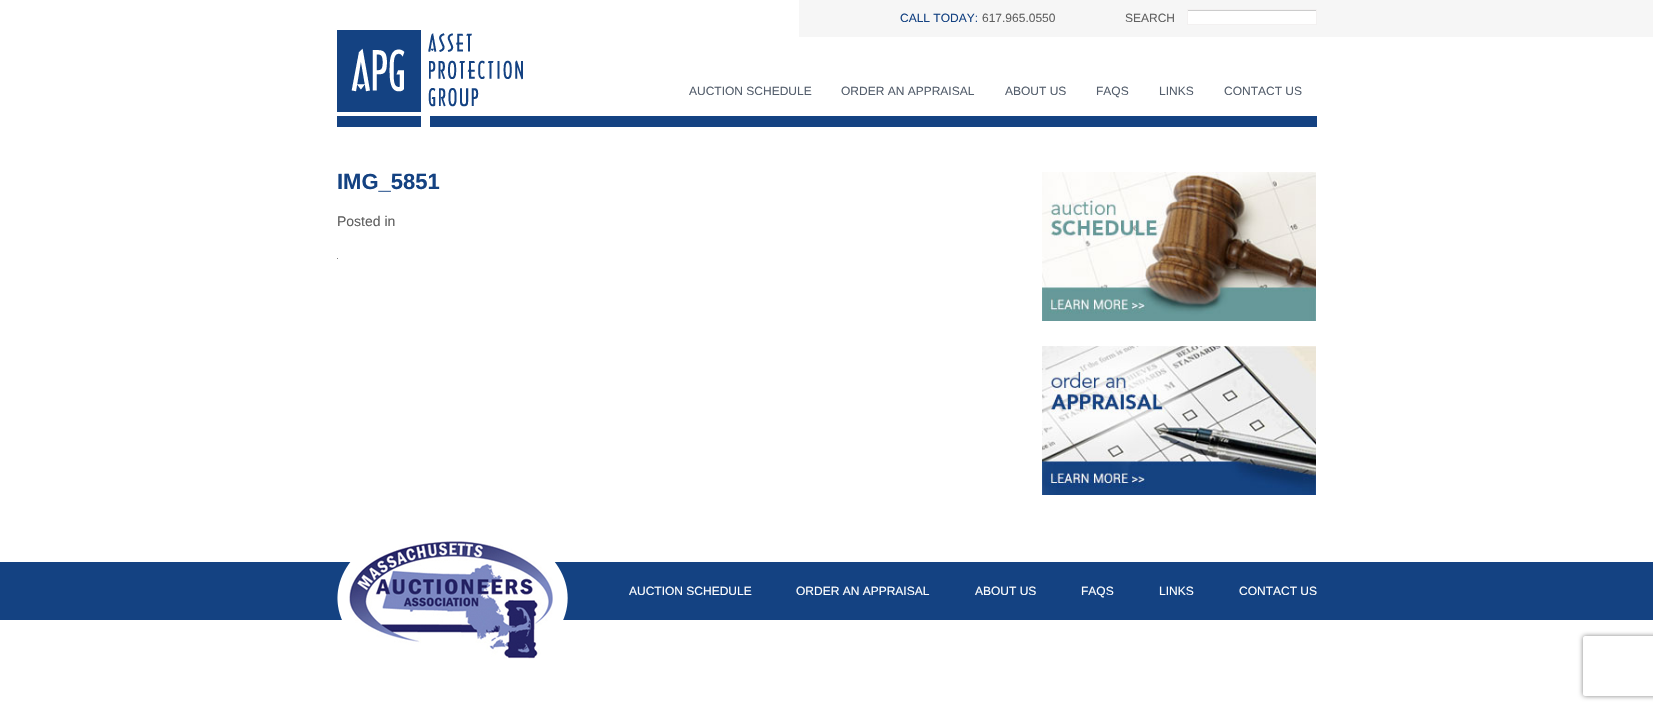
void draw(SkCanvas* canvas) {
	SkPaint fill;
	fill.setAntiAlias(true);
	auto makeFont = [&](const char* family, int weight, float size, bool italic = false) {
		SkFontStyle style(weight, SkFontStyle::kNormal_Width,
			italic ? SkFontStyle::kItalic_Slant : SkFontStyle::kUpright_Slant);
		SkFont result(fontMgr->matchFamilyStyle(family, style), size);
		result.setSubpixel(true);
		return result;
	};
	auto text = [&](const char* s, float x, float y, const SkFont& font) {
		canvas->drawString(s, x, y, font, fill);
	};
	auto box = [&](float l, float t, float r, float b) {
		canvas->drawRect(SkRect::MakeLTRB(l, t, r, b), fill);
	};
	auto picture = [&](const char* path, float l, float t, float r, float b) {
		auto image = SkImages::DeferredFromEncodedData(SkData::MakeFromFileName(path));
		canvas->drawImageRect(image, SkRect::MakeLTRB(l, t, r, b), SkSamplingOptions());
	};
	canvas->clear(0xFFFFFFFF);
	fill.setColor(0xFF144282);
	box(430, 116, 1317, 127);
	fill.setColor(0xFFF6F6F6);
	box(799, 0, 1653, 37);
	fill.setColor(0xFFFFFFFF);
	box(1188, 11, 1316, 24);
	fill.setColor(0xFFCCCCCC);
	box(1188, 10, 1316, 11);
	fill.setStyle(SkPaint::kStroke_Style);
	fill.setStrokeWidth(1);
	fill.setColor(0xFFF3F1F1);
	canvas->drawRect(SkRect::MakeLTRB(1187.5f, 9.5f, 1316.5f, 24.5f), fill);
	picture("image0.png", 337, 30, 523, 127);
	fill.setStyle(SkPaint::kFill_Style);
	fill.setColor(0xFF7F7F7F);
	box(337, 258, 338, 259);
	picture("image1.png", 1042, 172, 1316, 321);
	picture("image2.png", 1042, 346, 1316, 495);
	fill.setColor(0xFF144282);
	box(0, 562, 1653, 620);
	picture("image3.png", 337, 541, 568, 659);
	canvas->save();
	canvas->clipPath(SkPathBuilder(SkPathFillType::kEvenOdd).moveTo(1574, 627).lineTo(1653, 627).lineTo(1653, 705).lineTo(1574, 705).close().moveTo(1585, 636).lineTo(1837, 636).cubicTo(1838, 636, 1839, 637, 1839, 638).lineTo(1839, 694).cubicTo(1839, 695, 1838, 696, 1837, 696).lineTo(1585, 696).cubicTo(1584, 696, 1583, 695, 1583, 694).lineTo(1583, 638).cubicTo(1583, 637, 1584, 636, 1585, 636).close().detach(), true);
	fill.setColor(0xFF808080);
	fill.setMaskFilter(SkMaskFilter::MakeBlur(kNormal_SkBlurStyle, 2.5f));
	canvas->drawRoundRect(SkRect::MakeLTRB(1583, 636, 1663, 696), 2, 2, fill);
	fill.setMaskFilter(nullptr);
	canvas->restore();
	auto font1 = makeFont("Liberation Sans", 400, 12);
	fill.setColor(0xFF144282);
	text("CALL TODAY:", 900, 22, font1);
	fill.setColor(0xFF606060);
	text("617.965.0550", 982, 22, font1);
	text("SEARCH", 1125, 22, font1);
	fill.setColor(0xFF555F6D);
	text("AUCTION SCHEDULE", 689, 95, font1);
	text("ORDER AN APPRAISAL", 841, 95, font1);
	text("ABOUT US", 1005, 95, font1);
	text("FAQS", 1096, 95, font1);
	text("LINKS", 1159, 95, font1);
	text("CONTACT US", 1224, 95, font1);
	auto font2 = makeFont("Liberation Sans", 700, 22);
	fill.setColor(0xFF144282);
	text("IMG_5851", 337, 189, font2);
	auto font3 = makeFont("Liberation Sans", 400, 14);
	fill.setColor(0xFF606060);
	text("Posted in", 337, 226, font3);
	fill.setColor(0xFFFFFFFF);
	text("AUCTION SCHEDULE", 629, 595, font1);
	text("ORDER AN APPRAISAL", 796, 595, font1);
	text("ABOUT US", 975, 595, font1);
	text("FAQS", 1081, 595, font1);
	text("LINKS", 1159, 595, font1);
	text("CONTACT US", 1239, 595, font1);
}
